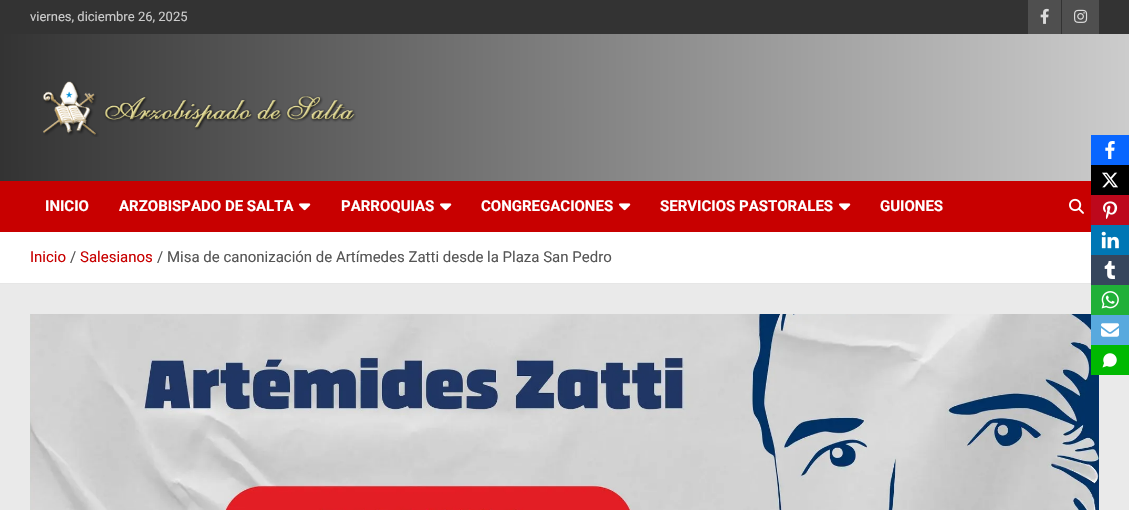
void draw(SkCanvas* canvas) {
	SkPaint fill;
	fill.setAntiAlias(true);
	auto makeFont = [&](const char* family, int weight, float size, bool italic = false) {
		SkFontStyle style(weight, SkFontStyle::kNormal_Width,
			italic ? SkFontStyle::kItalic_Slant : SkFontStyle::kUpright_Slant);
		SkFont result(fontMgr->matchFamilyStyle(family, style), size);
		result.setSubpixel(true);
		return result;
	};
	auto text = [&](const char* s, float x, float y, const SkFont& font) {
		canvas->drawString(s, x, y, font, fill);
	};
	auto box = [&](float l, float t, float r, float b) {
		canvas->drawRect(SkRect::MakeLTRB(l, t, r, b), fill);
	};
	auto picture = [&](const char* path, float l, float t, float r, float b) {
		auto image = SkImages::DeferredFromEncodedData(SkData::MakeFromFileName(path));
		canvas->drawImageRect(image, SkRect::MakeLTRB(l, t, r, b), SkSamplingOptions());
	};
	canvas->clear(0xFFEAEAEA);
	fill.setColor(0xFF333333);
	box(0, 0, 1129, 34);
	fill.setColor(0xFF4F4F4F);
	box(1028, 0, 1061, 34);
	picture("image0.png", 1040, 8, 1049, 24);
	box(1062, 0, 1099, 34);
	picture("image1.png", 1074, 9, 1088, 23);
	{
		const SkColor colors[] = {0xFF333333, 0xFFCCCCCC};
		const float stops[] = {0, 1};
		const SkPoint ends[] = {{0, 108}, {1129, 107}};
		fill.setShader(SkGradientShader::MakeLinear(ends, colors, stops, 2, SkTileMode::kClamp));
		fill.setAlpha(255);
	}
	box(0, 34, 1129, 181);
	picture("image2.png", 43, 81, 356, 137);
	fill.setShader(nullptr);
	fill.setColor(0xFFC80000);
	box(0, 181, 1091, 232);
	picture("image3.png", 299, 203, 311, 211);
	picture("image3.png", 440, 203, 452, 211);
	picture("image3.png", 619, 203, 631, 211);
	picture("image3.png", 839, 203, 851, 211);
	picture("image4.png", 1069, 198, 1084, 214);
	fill.setColor(0xFFFFFFFF);
	box(0, 232, 1091, 283);
	fill.setColor(0xFFE6E6E6);
	box(0, 283, 1091, 284);
	picture("image5.png", 30, 314, 1099, 510);
	fill.setColor(0xFF0866FF);
	box(1091, 135, 1129, 165);
	picture("image6.png", 1105, 141, 1115, 159);
	fill.setColor(0xFF000000);
	box(1091, 165, 1129, 195);
	picture("image7.png", 1102, 172, 1118, 188);
	fill.setColor(0xFFBD081C);
	box(1091, 195, 1129, 225);
	picture("image8.png", 1103, 201, 1118, 219);
	fill.setColor(0xFF0077B5);
	box(1091, 225, 1129, 255);
	picture("image9.png", 1101, 231, 1119, 249);
	fill.setColor(0xFF36465D);
	box(1091, 255, 1129, 285);
	picture("image10.png", 1104, 261, 1115, 279);
	fill.setColor(0xFF20B038);
	box(1091, 285, 1129, 315);
	picture("image11.png", 1101, 291, 1119, 309);
	fill.setColor(0xFF58A9DE);
	box(1091, 315, 1129, 345);
	picture("image12.png", 1101, 323, 1119, 337);
	fill.setColor(0xFF00B901);
	box(1091, 345, 1129, 375);
	picture("image13.png", 1102, 353, 1117, 368);
	auto font1 = makeFont("Roboto", 400, 13);
	fill.setColor(0xFFCCCCCC);
	text("viernes, diciembre 26, 2025", 30, 21, font1);
	auto font2 = makeFont("Roboto", 700, 15);
	fill.setColor(0xFFFFFFFF);
	text("INICIO", 45, 211, font2);
	text("ARZOBISPADO DE SALTA", 119, 211, font2);
	text("PARROQUIAS", 341, 211, font2);
	text("CONGREGACIONES", 481, 211, font2);
	text("SERVICIOS PASTORALES", 660, 211, font2);
	text("GUIONES", 880, 211, font2);
	auto font3 = makeFont("Roboto", 400, 15);
	fill.setColor(0xFFC80000);
	text("Inicio", 30, 262, font3);
	fill.setColor(0xFF555555);
	text("/", 70, 262, font3);
	fill.setColor(0xFFC80000);
	text("Salesianos", 80, 262, font3);
	fill.setColor(0xFF555555);
	text("/ Misa de canonización de Artímedes Zatti desde la Plaza San Pedro", 157, 262, font3);
}
